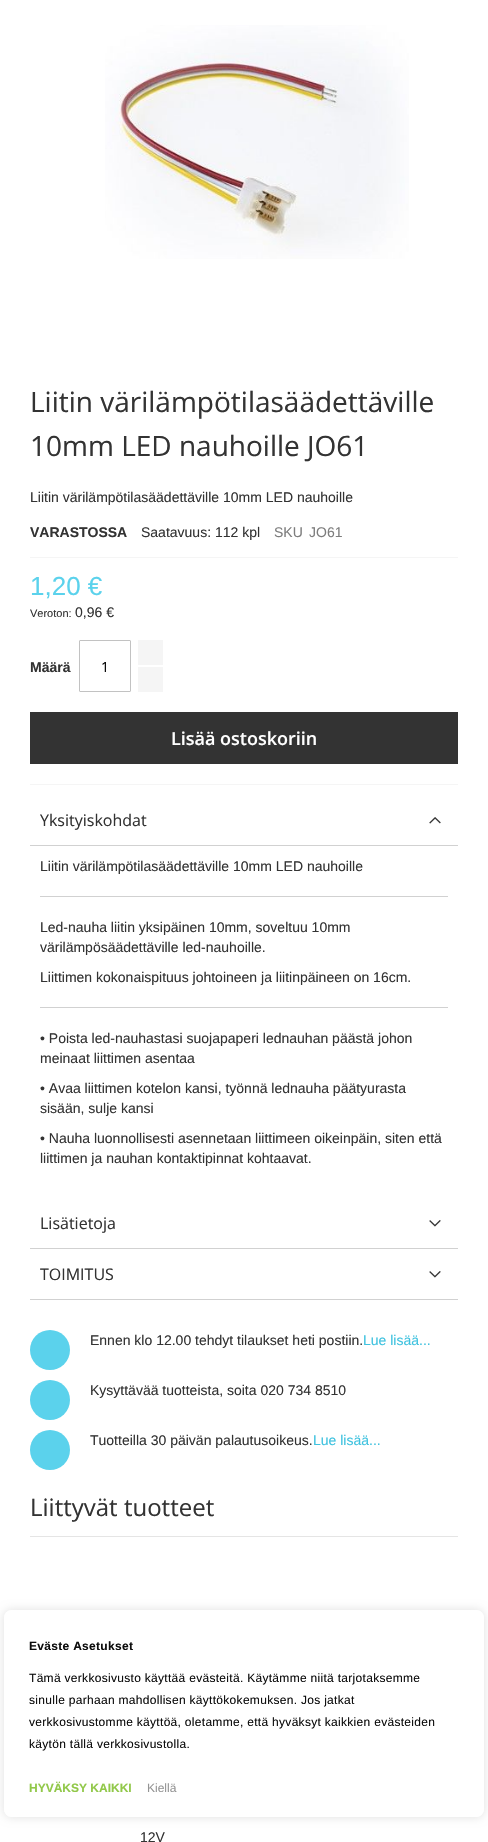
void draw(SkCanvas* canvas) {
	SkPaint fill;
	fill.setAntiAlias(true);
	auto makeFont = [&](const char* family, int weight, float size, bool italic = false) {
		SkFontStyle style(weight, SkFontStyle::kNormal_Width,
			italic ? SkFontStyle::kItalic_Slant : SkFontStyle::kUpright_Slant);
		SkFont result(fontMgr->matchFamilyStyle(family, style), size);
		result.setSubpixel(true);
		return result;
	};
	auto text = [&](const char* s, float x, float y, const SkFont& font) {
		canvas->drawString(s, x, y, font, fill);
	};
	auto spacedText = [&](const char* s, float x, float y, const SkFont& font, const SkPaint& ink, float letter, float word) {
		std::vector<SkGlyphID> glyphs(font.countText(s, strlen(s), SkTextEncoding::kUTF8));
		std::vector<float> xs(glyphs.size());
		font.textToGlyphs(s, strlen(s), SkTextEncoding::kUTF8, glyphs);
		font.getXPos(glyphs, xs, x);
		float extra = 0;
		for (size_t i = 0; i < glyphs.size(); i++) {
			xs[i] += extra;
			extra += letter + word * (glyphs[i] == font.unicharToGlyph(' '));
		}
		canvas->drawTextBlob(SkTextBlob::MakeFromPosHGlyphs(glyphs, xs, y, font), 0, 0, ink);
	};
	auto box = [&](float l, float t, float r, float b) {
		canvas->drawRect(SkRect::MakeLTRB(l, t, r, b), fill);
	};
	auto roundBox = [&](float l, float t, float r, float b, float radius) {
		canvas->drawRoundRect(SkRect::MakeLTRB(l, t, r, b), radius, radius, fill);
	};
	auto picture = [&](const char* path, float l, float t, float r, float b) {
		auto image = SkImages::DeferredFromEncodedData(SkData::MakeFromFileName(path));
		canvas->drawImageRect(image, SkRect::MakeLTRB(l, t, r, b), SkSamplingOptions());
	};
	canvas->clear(0xFFFFFFFF);
	picture("image0.png", 105, 25, 409, 259);
	fill.setColor(0xFFF5F5F5);
	box(30, 557, 458, 558);
	box(30, 784, 458, 785);
	fill.setStyle(SkPaint::kStroke_Style);
	fill.setStrokeWidth(1);
	fill.setColor(0xFFC2C2C2);
	canvas->drawRoundRect(SkRect::MakeLTRB(79.5f, 640.5f, 130.5f, 691.5f), 0.5f, 0.5f, fill);
	fill.setStyle(SkPaint::kFill_Style);
	fill.setColor(0xFFF5F5F5);
	box(138, 640, 163, 665);
	box(138, 667, 163, 692);
	fill.setColor(0xFF333333);
	box(30, 712, 458, 764);
	fill.setColor(0xFFD1D1D1);
	box(30, 845, 458, 846);
	picture("image1.png", 429, 817, 441, 824);
	box(40, 896, 448, 897);
	box(40, 1007, 448, 1008);
	box(30, 1248, 458, 1249);
	picture("image2.png", 429, 1220, 441, 1227);
	box(30, 1299, 458, 1300);
	picture("image2.png", 429, 1271, 441, 1278);
	fill.setColor(0xFF5BD2EC);
	canvas->drawCircle(50, 1350, 20, fill);
	canvas->drawCircle(50, 1400, 20, fill);
	canvas->drawCircle(50, 1450, 20, fill);
	fill.setColor(0xFFE5E5E5);
	box(30, 1536, 458, 1537);
	canvas->save();
	canvas->clipPath(SkPathBuilder(SkPathFillType::kEvenOdd).moveTo(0, 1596).lineTo(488, 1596).lineTo(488, 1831).lineTo(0, 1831).close().moveTo(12, 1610).lineTo(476, 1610).cubicTo(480.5f, 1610, 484, 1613.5f, 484, 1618).lineTo(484, 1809).cubicTo(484, 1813.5f, 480.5f, 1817, 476, 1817).lineTo(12, 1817).cubicTo(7.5f, 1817, 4, 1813.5f, 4, 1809).lineTo(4, 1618).cubicTo(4, 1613.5f, 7.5f, 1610, 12, 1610).close().detach(), true);
	fill.setColor(0x1A000000);
	fill.setMaskFilter(SkMaskFilter::MakeBlur(kNormal_SkBlurStyle, 4));
	canvas->drawRoundRect(SkRect::MakeLTRB(3, 1609, 485, 1818), 9, 9, fill);
	fill.setMaskFilter(nullptr);
	canvas->restore();
	fill.setColor(0xF2FFFFFF);
	roundBox(4, 1610, 484, 1817, 8);
	auto font1 = makeFont("Open Sans", 400, 28);
	fill.setColor(0xFF333333);
	text("Liitin värilämpötilasäädettäville", 30, 412, font1);
	text("10mm LED nauhoille JO61", 30, 456, font1);
	auto font2 = makeFont("Liberation Sans", 400, 14);
	text("Liitin värilämpötilasäädettäville 10mm LED nauhoille", 30, 502, font2);
	auto font3 = makeFont("Liberation Sans", 700, 14);
	text("VARASTOSSA", 30, 537, font3);
	text("Saatavuus: 112 kpl", 141, 537, font2);
	fill.setColor(0xFF7D7D7D);
	text("SKU", 274, 537, font2);
	text("JO61", 309, 537, font2);
	auto font4 = makeFont("Liberation Sans", 400, 26);
	fill.setColor(0xFF5BD2EC);
	text("1,20 €", 30, 595, font4);
	auto font5 = makeFont("Liberation Sans", 400, 11);
	fill.setColor(0xFF333333);
	text("Veroton:", 30, 617, font5);
	text("0,96 €", 75, 617, font2);
	text("Määrä", 30, 672, font3);
	auto font6 = makeFont("Open Sans", 400, 14);
	fill.setColor(0xFF000000);
	text("1", 101, 672, font6);
	auto font7 = makeFont("Open Sans", 600, 18);
	fill.setColor(0xFFFFFFFF);
	text("Lisää ostoskoriin", 171, 745, font7);
	auto font8 = makeFont("Open Sans", 400, 16);
	fill.setColor(0xFF333333);
	text("Yksityiskohdat", 40, 826, font8);
	text("Liitin värilämpötilasäädettäville 10mm LED nauhoille", 40, 871, font2);
	text("Led-nauha liitin yksipäinen 10mm, soveltuu 10mm", 40, 932, font2);
	text("värilämpösäädettäville led-nauhoille.", 40, 952, font2);
	text("Liittimen kokonaispituus johtoineen ja liitinpäineen on 16cm.", 40, 982, font2);
	text("• Poista led-nauhastasi suojapaperi lednauhan päästä johon", 40, 1043, font2);
	text("meinaat liittimen asentaa", 40, 1063, font2);
	text("• Avaa liittimen kotelon kansi, työnnä lednauha päätyurasta", 40, 1093, font2);
	text("sisään, sulje kansi", 40, 1113, font2);
	text("• Nauha luonnollisesti asennetaan liittimeen oikeinpäin, siten että", 40, 1143, font2);
	text("liittimen ja nauhan kontaktipinnat kohtaavat.", 40, 1163, font2);
	text("Lisätietoja", 40, 1229, font8);
	text("TOIMITUS", 40, 1280, font8);
	text("Ennen klo 12.00 tehdyt tilaukset heti postiin.", 90, 1345, font2);
	fill.setColor(0xFF3EC2DF);
	text("Lue lisää...", 363, 1345, font2);
	fill.setColor(0xFF333333);
	text("Kysyttävää tuotteista, soita 020 734 8510", 90, 1395, font2);
	text("Tuotteilla 30 päivän palautusoikeus.", 90, 1445, font2);
	fill.setColor(0xFF3EC2DF);
	text("Lue lisää...", 313, 1445, font2);
	auto font9 = makeFont("Open Sans", 400, 24);
	fill.setColor(0xFF333333);
	text("Liittyvät tuotteet", 30, 1516, font9);
	text("12V", 140, 1842, font2);
	auto font10 = makeFont("Liberation Sans", 700, 12);
	fill.setColor(0xFF0D0D0D);
	spacedText("Eväste Asetukset", 29, 1650, font10, fill, 0.3f, 0);
	auto font11 = makeFont("Liberation Sans", 400, 12);
	spacedText("Tämä verkkosivusto käyttää evästeitä. Käytämme niitä tarjotaksemme", 29, 1682, font11, fill, 0.3f, 0);
	spacedText("sinulle parhaan mahdollisen käyttökokemuksen. Jos jatkat", 29, 1704, font11, fill, 0.3f, 0);
	spacedText("verkkosivustomme käyttöä, oletamme, että hyväksyt kaikkien evästeiden", 29, 1726, font11, fill, 0.3f, 0);
	spacedText("käytön tällä verkkosivustolla.", 29, 1748, font11, fill, 0.3f, 0);
	fill.setColor(0xFF91C849);
	text("HYVÄKSY KAIKKI", 29, 1792, font10);
	fill.setColor(0xFF949494);
	text("Kiellä", 147, 1792, font11);
}
